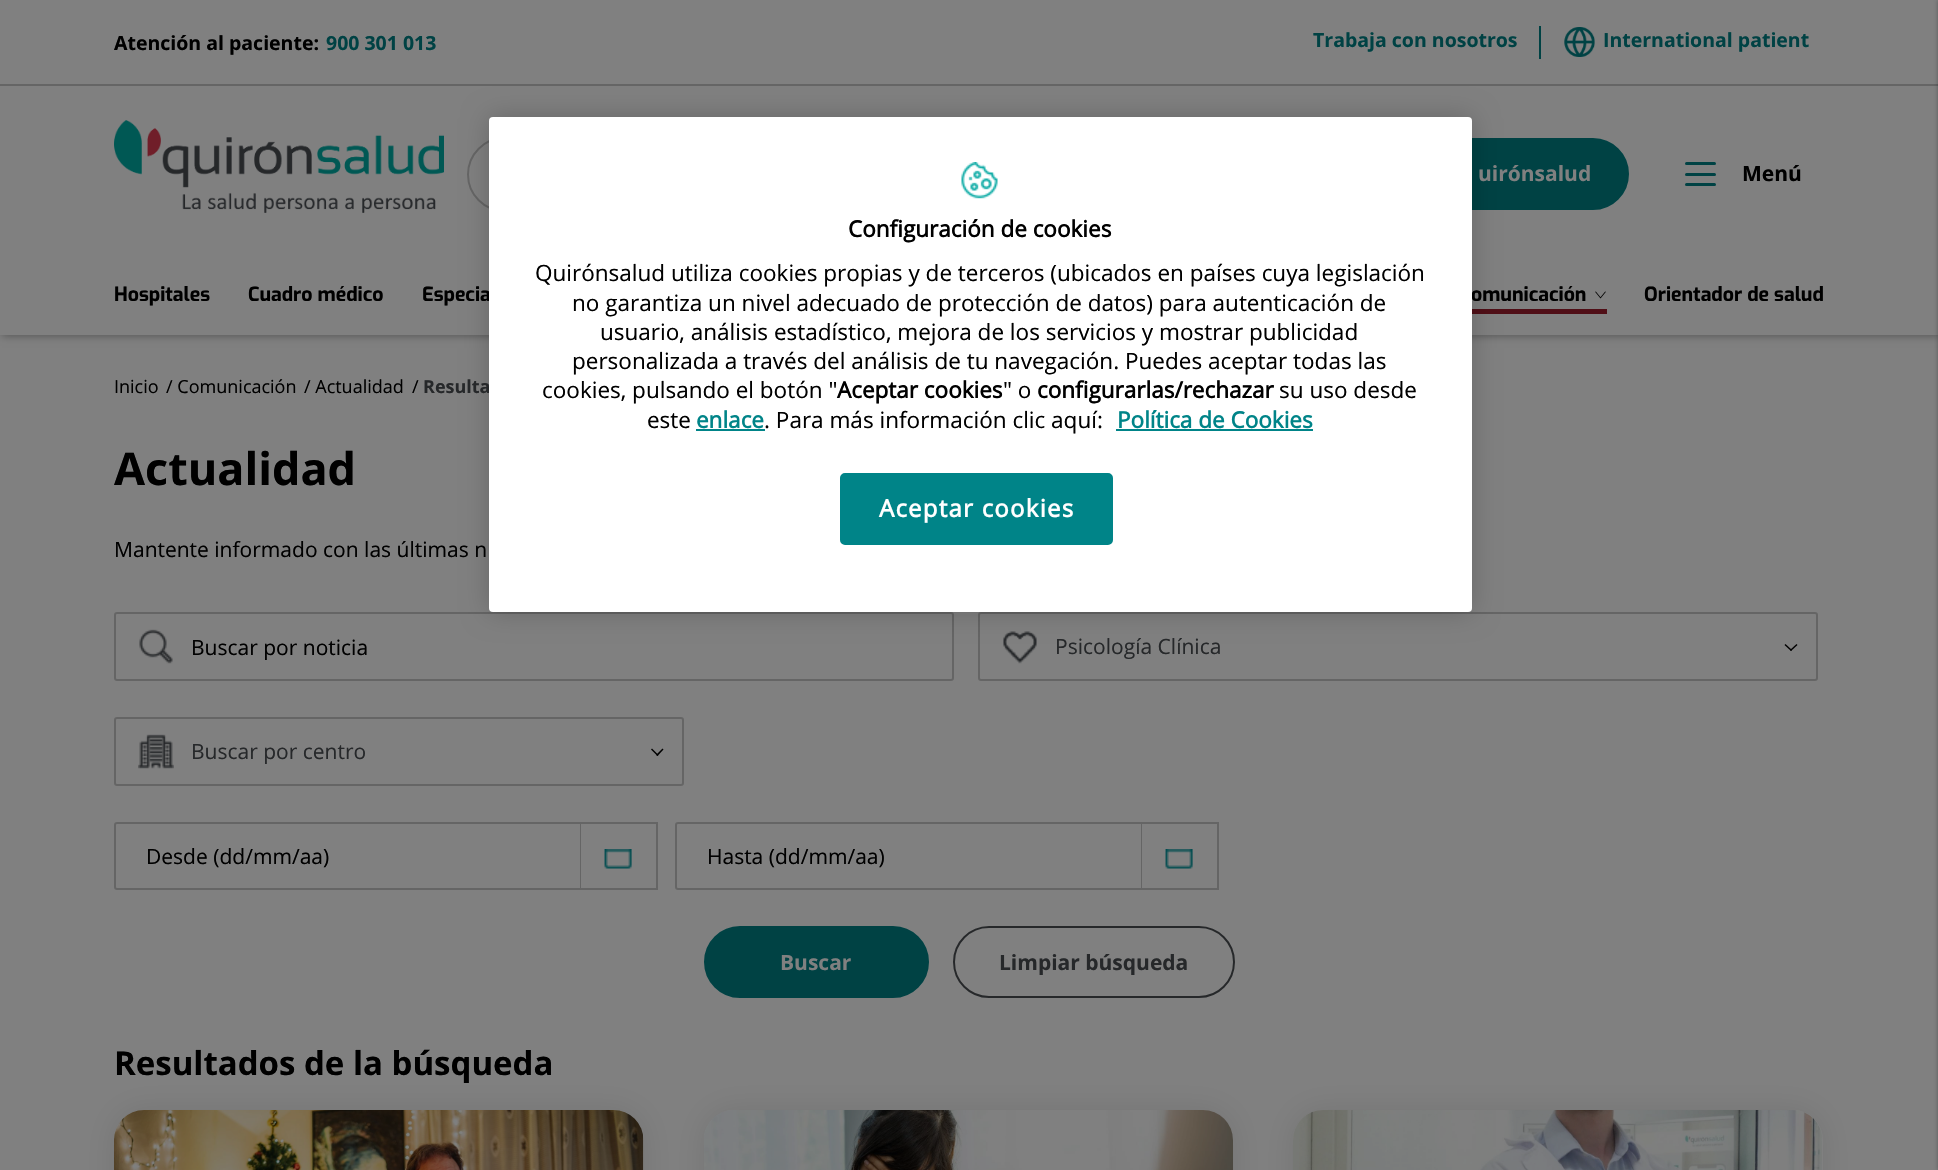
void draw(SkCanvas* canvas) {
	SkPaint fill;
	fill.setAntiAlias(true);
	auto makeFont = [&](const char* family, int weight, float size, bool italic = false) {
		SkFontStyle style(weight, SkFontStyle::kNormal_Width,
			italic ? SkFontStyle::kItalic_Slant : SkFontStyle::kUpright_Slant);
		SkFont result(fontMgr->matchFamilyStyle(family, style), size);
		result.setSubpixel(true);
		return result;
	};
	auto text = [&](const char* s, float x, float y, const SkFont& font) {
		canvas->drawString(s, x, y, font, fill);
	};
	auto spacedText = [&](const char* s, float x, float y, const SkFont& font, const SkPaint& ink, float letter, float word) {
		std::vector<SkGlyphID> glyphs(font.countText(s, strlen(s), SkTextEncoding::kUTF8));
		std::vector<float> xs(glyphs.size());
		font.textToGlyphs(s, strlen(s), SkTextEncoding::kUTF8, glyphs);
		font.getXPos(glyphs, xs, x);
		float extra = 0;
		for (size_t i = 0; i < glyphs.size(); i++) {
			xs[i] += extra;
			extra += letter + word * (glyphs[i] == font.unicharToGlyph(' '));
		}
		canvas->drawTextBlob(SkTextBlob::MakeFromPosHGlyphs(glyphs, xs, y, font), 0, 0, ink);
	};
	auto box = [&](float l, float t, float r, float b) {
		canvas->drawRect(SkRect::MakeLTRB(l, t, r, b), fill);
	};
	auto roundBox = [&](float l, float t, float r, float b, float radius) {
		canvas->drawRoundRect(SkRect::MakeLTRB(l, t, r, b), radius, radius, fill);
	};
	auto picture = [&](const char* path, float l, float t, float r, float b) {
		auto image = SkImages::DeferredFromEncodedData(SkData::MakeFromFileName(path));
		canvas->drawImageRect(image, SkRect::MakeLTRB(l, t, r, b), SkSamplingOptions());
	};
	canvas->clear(0xFF808080);
	fill.setColor(0x54000000);
	fill.setMaskFilter(SkMaskFilter::MakeBlur(kNormal_SkBlurStyle, 4));
	canvas->drawRect(SkRect::MakeLTRB(2, 2, 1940, 336), fill);
	fill.setMaskFilter(nullptr);
	fill.setColor(0xFF808080);
	box(0, 0, 1938, 335);
	fill.setColor(0xFF656565);
	box(0, 84, 1938, 86);
	fill.setColor(0xFF004244);
	box(1539, 26, 1541, 59);
	picture("image0.png", 1564, 27, 1595, 57);
	fill.setColor(0x4D000000);
	fill.setMaskFilter(SkMaskFilter::MakeBlur(kNormal_SkBlurStyle, 2));
	canvas->drawRect(SkRect::MakeLTRB(1938, 0, 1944, 1170), fill);
	fill.setMaskFilter(nullptr);
	picture("image1.png", 114, 120, 444, 213);
	fill.setStyle(SkPaint::kStroke_Style);
	fill.setStrokeWidth(2);
	fill.setColor(0xFF656565);
	canvas->drawRoundRect(SkRect::MakeLTRB(468, 138, 1082, 211), 36.5f, 36.5f, fill);
	fill.setStyle(SkPaint::kFill_Style);
	fill.setColor(0xFF004244);
	canvas->drawRoundRect(SkRect::MakeLTRB(1345, 139, 1628, 209), 35, 35, fill);
	fill.setStyle(SkPaint::kStroke_Style);
	canvas->drawRoundRect(SkRect::MakeLTRB(1345, 139, 1628, 209), 35, 35, fill);
	fill.setStyle(SkPaint::kFill_Style);
	roundBox(1685, 162, 1716, 165, 1.5f);
	roundBox(1685, 173, 1716, 176, 1.5f);
	roundBox(1685, 183, 1716, 186, 1.5f);
	picture("image2.png", 1595, 291, 1606, 299);
	fill.setColor(0xFF500F17);
	box(1472, 309, 1607, 314);
	fill.setStyle(SkPaint::kStroke_Style);
	fill.setColor(0xFF656565);
	canvas->drawRoundRect(SkRect::MakeLTRB(115, 613, 953, 680), 2, 2, fill);
	picture("image3.png", 139, 629, 173, 664);
	canvas->drawRoundRect(SkRect::MakeLTRB(979, 613, 1817, 680), 2, 2, fill);
	picture("image4.png", 1003, 631, 1037, 664);
	fill.setStyle(SkPaint::kFill_Style);
	fill.setColor(0xFF000000);
	canvas->drawPath(SkPathBuilder().moveTo(1790, 650).lineTo(1796.5f, 644).lineTo(1797.5f, 645).lineTo(1791, 651).close().detach(), fill);
	canvas->drawPath(SkPathBuilder().moveTo(1784.5f, 645).lineTo(1785.5f, 644).lineTo(1792, 650).lineTo(1791, 651).close().detach(), fill);
	fill.setStyle(SkPaint::kStroke_Style);
	fill.setColor(0xFF656565);
	canvas->drawRoundRect(SkRect::MakeLTRB(115, 718, 683, 785), 2, 2, fill);
	picture("image5.png", 138, 734, 174, 769);
	fill.setStyle(SkPaint::kFill_Style);
	fill.setColor(0xFF000000);
	canvas->drawPath(SkPathBuilder().moveTo(656, 755).lineTo(662.5f, 748.5f).lineTo(663.5f, 749.5f).lineTo(657.5f, 756).close().detach(), fill);
	canvas->drawPath(SkPathBuilder().moveTo(651, 749.5f).lineTo(652, 748.5f).lineTo(658.5f, 755).lineTo(657.5f, 756).close().detach(), fill);
	fill.setStyle(SkPaint::kStroke_Style);
	fill.setColor(0xFF656565);
	canvas->drawPath(SkPathBuilder().moveTo(117, 823).lineTo(581, 823).lineTo(581, 889).lineTo(117, 889).cubicTo(116, 889, 115, 888, 115, 887).lineTo(115, 825).cubicTo(115, 824, 116, 823, 117, 823).close().detach(), fill);
	fill.setStyle(SkPaint::kFill_Style);
	box(582, 822, 657, 824);
	box(656, 822, 658, 890);
	box(582, 888, 657, 890);
	fill.setColor(0xFF808080);
	canvas->drawPath(SkPathBuilder().moveTo(581, 824).lineTo(653, 824).cubicTo(654.5f, 824, 656, 825.5f, 656, 827).lineTo(656, 885).cubicTo(656, 886.5f, 654.5f, 888, 653, 888).lineTo(581, 888).close().detach(), fill);
	picture("image6.png", 604, 849, 632, 869);
	fill.setStyle(SkPaint::kStroke_Style);
	fill.setColor(0xFF656565);
	canvas->drawPath(SkPathBuilder().moveTo(678, 823).lineTo(1142, 823).lineTo(1142, 889).lineTo(678, 889).cubicTo(677, 889, 676, 888, 676, 887).lineTo(676, 825).cubicTo(676, 824, 677, 823, 678, 823).close().detach(), fill);
	fill.setStyle(SkPaint::kFill_Style);
	box(1143, 822, 1218, 824);
	box(1217, 822, 1219, 890);
	box(1143, 888, 1218, 890);
	fill.setColor(0xFF808080);
	canvas->drawPath(SkPathBuilder().moveTo(1142, 824).lineTo(1214, 824).cubicTo(1215.5f, 824, 1217, 825.5f, 1217, 827).lineTo(1217, 885).cubicTo(1217, 886.5f, 1215.5f, 888, 1214, 888).lineTo(1142, 888).close().detach(), fill);
	picture("image6.png", 1165, 849, 1193, 869);
	fill.setColor(0xFF004244);
	canvas->drawRoundRect(SkRect::MakeLTRB(705, 927, 928, 997), 35, 35, fill);
	fill.setStyle(SkPaint::kStroke_Style);
	canvas->drawRoundRect(SkRect::MakeLTRB(705, 927, 928, 997), 35, 35, fill);
	fill.setColor(0xFF26282A);
	canvas->drawRoundRect(SkRect::MakeLTRB(954, 927, 1234, 997), 35, 35, fill);
	fill.setStyle(SkPaint::kFill_Style);
	fill.setColor(0xFF747474);
	fill.setMaskFilter(SkMaskFilter::MakeBlur(kNormal_SkBlurStyle, 15));
	canvas->drawRoundRect(SkRect::MakeLTRB(114, 1110, 644, 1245), 30, 30, fill);
	fill.setMaskFilter(nullptr);
	fill.setColor(0xFF808080);
	roundBox(114, 1110, 644, 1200, 30);
	picture("image7.png", 114, 1110, 644, 1170);
	fill.setColor(0xFF747474);
	fill.setMaskFilter(SkMaskFilter::MakeBlur(kNormal_SkBlurStyle, 15));
	canvas->drawRoundRect(SkRect::MakeLTRB(704, 1110, 1233, 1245), 30, 30, fill);
	fill.setMaskFilter(nullptr);
	fill.setColor(0xFF808080);
	roundBox(704, 1110, 1233, 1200, 30);
	picture("image8.png", 704, 1110, 1233, 1170);
	fill.setColor(0xFF747474);
	fill.setMaskFilter(SkMaskFilter::MakeBlur(kNormal_SkBlurStyle, 15));
	canvas->drawRoundRect(SkRect::MakeLTRB(1293, 1110, 1823, 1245), 30, 30, fill);
	fill.setMaskFilter(nullptr);
	fill.setColor(0xFF808080);
	roundBox(1293, 1110, 1823, 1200, 30);
	picture("image9.png", 1293, 1110, 1822, 1170);
	fill.setColor(0x33000000);
	fill.setMaskFilter(SkMaskFilter::MakeBlur(kNormal_SkBlurStyle, 13.5f));
	canvas->drawRoundRect(SkRect::MakeLTRB(489, 117, 1472, 612), 4, 4, fill);
	fill.setMaskFilter(nullptr);
	auto font1 = makeFont("Open Sans", 700, 19.5f);
	fill.setColor(0xFF000000);
	text("Atención al paciente:", 114, 50, font1);
	fill.setColor(0xFF004244);
	text("900 301 013", 326, 50, font1);
	text("Trabaja con nosotros", 1313, 47, font1);
	text("International patient", 1603, 47, font1);
	auto font2 = makeFont("Open Sans", 700, 21);
	fill.setColor(0xFF808080);
	text("uirónsalud", 1478, 181, font2);
	fill.setColor(0xFF000000);
	text("Menú", 1742, 181, font2);
	auto font3 = makeFont("Exo", 700, 19.5f);
	text("Hospitales", 114, 301, font3);
	text("Cuadro médico", 248, 301, font3);
	text("Especia", 422, 301, font3);
	text("omunicación", 1471, 301, font3);
	text("Orientador de salud", 1644, 301, font3);
	auto font4 = makeFont("Open Sans", 400, 18);
	text("Inicio", 114, 393, font4);
	text("/ Comunicación", 166, 393, font4);
	text("/ Actualidad", 304, 393, font4);
	text("/", 412, 393, font4);
	auto font5 = makeFont("Open Sans", 700, 18);
	fill.setColor(0xFF26282A);
	text("Resulta", 423, 393, font5);
	auto font6 = makeFont("Open Sans", 700, 45);
	fill.setColor(0xFF000000);
	text("Actualidad", 114, 485, font6);
	auto font7 = makeFont("Open Sans", 400, 21);
	text("Mantente informado con las últimas n", 114, 557, font7);
	text("Buscar por noticia", 191, 655, font7);
	fill.setColor(0xFF26282A);
	text("Psicología Clínica", 1055, 654, font7);
	text("Buscar por centro", 191, 759, font7);
	fill.setColor(0xFF000000);
	text("Desde (dd/mm/aa)", 146, 864, font7);
	text("Hasta (dd/mm/aa)", 707, 864, font7);
	fill.setColor(0xFF808080);
	text("Buscar", 780, 970, font2);
	fill.setColor(0xFF26282A);
	text("Limpiar búsqueda", 999, 970, font2);
	auto font8 = makeFont("Open Sans", 700, 33);
	fill.setColor(0xFF000000);
	text("Resultados de la búsqueda", 114, 1075, font8);
	fill.setColor(0xFFFFFFFF);
	roundBox(489, 117, 1472, 612, 4);
	picture("image10.png", 961, 162, 998, 199);
	auto font9 = makeFont("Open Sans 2", 700, 22.5f);
	fill.setColor(0xFF000000);
	text("Configuración de cookies", 848, 237, font9);
	auto font10 = makeFont("Open Sans", 400, 22.5f);
	text("Quirónsalud utiliza cookies propias y de terceros (ubicados en países cuya legislación", 535, 281, font10);
	text("no garantiza un nivel adecuado de protección de datos) para autenticación de", 572, 311, font10);
	text("usuario, análisis estadístico, mejora de los servicios y mostrar publicidad", 600, 340, font10);
	text("personalizada a través del análisis de tu navegación. Puedes aceptar todas las", 572, 369, font10);
	text("cookies, pulsando el botón \"", 542, 398, font10);
	text("Aceptar cookies", 837, 398, font9);
	text("\" o", 1003, 398, font10);
	text("configurarlas/rechazar", 1037, 398, font9);
	text("su uso desde", 1279, 398, font10);
	text("este", 647, 428, font10);
	fill.setColor(0xFF008488);
	text("enlace", 696, 428, font9);
	box(696, 429, 765, 431);
	fill.setColor(0xFF000000);
	text(". Para más información clic aquí:", 764, 428, font10);
	fill.setColor(0xFF008488);
	text("Política de Cookies", 1117, 428, font9);
	box(1116, 429, 1313, 431);
	canvas->drawRoundRect(SkRect::MakeLTRB(841, 474, 1112, 544), 4, 4, fill);
	fill.setStyle(SkPaint::kStroke_Style);
	canvas->drawRoundRect(SkRect::MakeLTRB(841, 474, 1112, 544), 4, 4, fill);
	auto font11 = makeFont("Open Sans 2", 700, 24);
	fill.setStyle(SkPaint::kFill_Style);
	fill.setColor(0xFFFFFFFF);
	spacedText("Aceptar cookies", 879, 517, font11, fill, 1.25f, 0);
}
